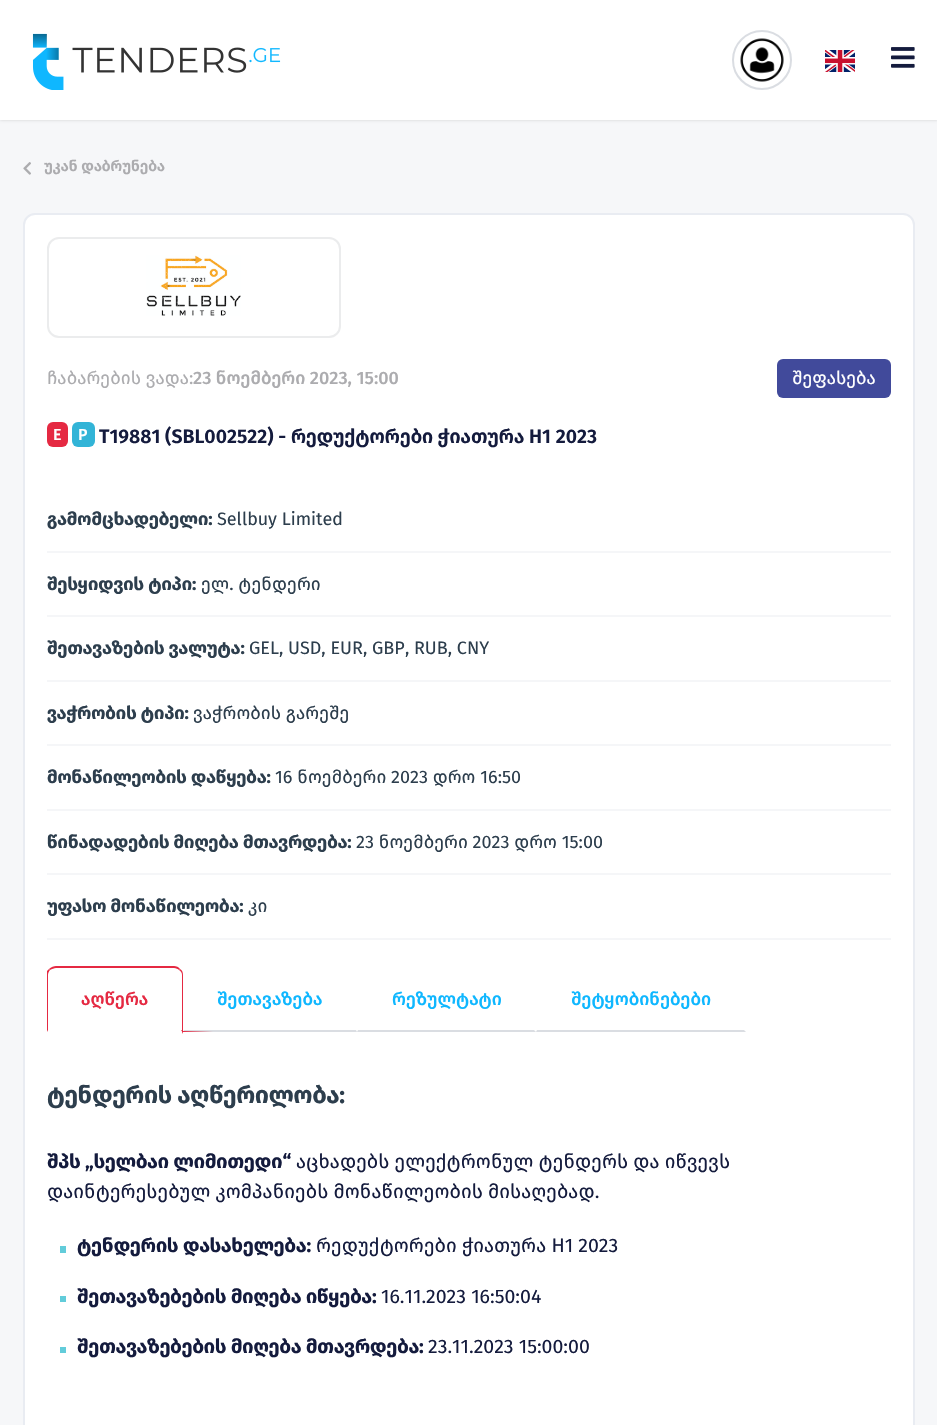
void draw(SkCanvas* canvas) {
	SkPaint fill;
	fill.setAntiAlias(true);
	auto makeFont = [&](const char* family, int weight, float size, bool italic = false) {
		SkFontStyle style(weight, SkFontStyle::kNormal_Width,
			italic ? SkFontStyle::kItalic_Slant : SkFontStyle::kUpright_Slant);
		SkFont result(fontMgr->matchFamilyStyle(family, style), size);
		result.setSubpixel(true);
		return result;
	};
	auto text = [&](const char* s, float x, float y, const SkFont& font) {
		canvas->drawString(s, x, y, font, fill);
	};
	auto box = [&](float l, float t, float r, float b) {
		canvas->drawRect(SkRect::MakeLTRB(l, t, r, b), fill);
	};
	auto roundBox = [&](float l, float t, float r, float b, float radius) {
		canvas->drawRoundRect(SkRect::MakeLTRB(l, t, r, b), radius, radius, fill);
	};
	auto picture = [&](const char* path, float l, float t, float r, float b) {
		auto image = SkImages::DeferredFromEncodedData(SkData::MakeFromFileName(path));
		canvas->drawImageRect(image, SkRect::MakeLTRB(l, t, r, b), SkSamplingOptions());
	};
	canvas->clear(0xFFF6F7F9);
	fill.setColor(0x29000000);
	fill.setMaskFilter(SkMaskFilter::MakeBlur(kNormal_SkBlurStyle, 1.5f));
	canvas->drawRect(SkRect::MakeLTRB(0, 0, 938, 120), fill);
	fill.setMaskFilter(nullptr);
	fill.setColor(0xFFFFFFFF);
	box(0, 0, 937, 120);
	picture("image0.png", 32, 33, 281, 90);
	fill.setStyle(SkPaint::kStroke_Style);
	fill.setStrokeWidth(2);
	fill.setColor(0xFFDADDE2);
	canvas->drawCircle(762, 60, 29, fill);
	picture("image1.png", 740, 38, 784, 82);
	picture("image2.png", 825, 50, 855, 72);
	picture("image3.png", 891, 47, 915, 68);
	picture("image4.png", 23, 162, 31, 175);
	fill.setStyle(SkPaint::kFill_Style);
	fill.setColor(0xFFFFFFFF);
	canvas->drawRoundRect(SkRect::MakeLTRB(24, 214, 914, 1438), 11, 11, fill);
	fill.setStyle(SkPaint::kStroke_Style);
	fill.setColor(0xFFE9ECF2);
	canvas->drawRoundRect(SkRect::MakeLTRB(24, 214, 914, 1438), 11, 11, fill);
	fill.setColor(0xFFEBECED);
	canvas->drawRoundRect(SkRect::MakeLTRB(48, 238, 340, 337), 11, 11, fill);
	picture("image5.png", 146, 255, 241, 316);
	fill.setStyle(SkPaint::kFill_Style);
	fill.setColor(0xFF414A9B);
	roundBox(777, 359, 891, 398, 6);
	fill.setColor(0xFFE52942);
	roundBox(47, 422, 68, 447, 6);
	fill.setColor(0xFF32B4D7);
	roundBox(72, 422, 95, 447, 6);
	fill.setColor(0xFFF5F6F8);
	box(47, 551, 891, 553);
	box(47, 615, 891, 617);
	box(47, 680, 891, 682);
	box(47, 744, 891, 746);
	box(47, 809, 891, 811);
	box(47, 873, 891, 875);
	box(47, 938, 891, 940);
	fill.setColor(0xFFE52942);
	canvas->drawPath(SkPathBuilder().moveTo(56, 966).cubicTo(54, 966, 51, 967, 49, 969).lineTo(50, 970).cubicTo(52, 969, 54, 968, 56, 968).lineTo(174, 968).cubicTo(176, 968, 178, 969, 179, 970).lineTo(180, 969).cubicTo(179, 967, 176, 966, 174, 966).close().detach(), fill);
	canvas->drawPath(SkPathBuilder().moveTo(183, 1034).lineTo(183, 975).cubicTo(183, 972, 182, 970, 180, 969).lineTo(179, 970).cubicTo(181, 971, 182, 973, 182, 975).lineTo(182, 1030).lineTo(181, 1030).close().detach(), fill);
	canvas->save();
	canvas->clipRect(SkRect::MakeLTRB(47, 966, 891, 1032));
	fill.setColor(0xFFFFFFFF);
	canvas->drawPath(SkPathBuilder().moveTo(183, 1034).lineTo(181, 1030).lineTo(48, 1030).lineTo(46, 1034).close().detach(), fill);
	fill.setColor(0xFFE52942);
	canvas->drawPath(SkPathBuilder().moveTo(46, 1034).lineTo(46, 972).lineTo(49, 969).lineTo(50, 970).cubicTo(49, 971, 48, 973, 48, 975).lineTo(48, 1030).close().detach(), fill);
	canvas->restore();
	fill.setColor(0xFFDADDE2);
	canvas->drawPath(SkPathBuilder().moveTo(357, 1032).lineTo(183, 1032).lineTo(184, 1030).lineTo(356, 1030).close().detach(), fill);
	{
		const SkColor colors[] = {0xFFDADDE2, 0xFFE52942};
		const float stops[] = {0, 1};
		const SkPoint ends[] = {{213, 1031}, {183, 1031}};
		fill.setShader(SkGradientShader::MakeLinear(ends, colors, stops, 2, SkTileMode::kClamp));
		fill.setAlpha(255);
	}
	box(183, 1031, 213, 1032);
	fill.setShader(nullptr);
	fill.setColor(0xFFDADDE2);
	canvas->drawPath(SkPathBuilder().moveTo(536, 1032).lineTo(357, 1032).lineTo(358, 1030).lineTo(534, 1030).close().detach(), fill);
	canvas->drawPath(SkPathBuilder().moveTo(746, 1032).lineTo(536, 1032).lineTo(537, 1030).lineTo(744, 1030).close().detach(), fill);
	fill.setColor(0xFF62CCDA);
	box(60, 1246, 66, 1253);
	box(60, 1296, 66, 1302);
	box(60, 1347, 66, 1353);
	auto font1 = makeFont("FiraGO", 600, 15);
	fill.setColor(0xFFACACAF);
	text("უკან დაბრუნება", 44, 171, font1);
	auto font2 = makeFont("FiraGO", 400, 18);
	text("ჩაბარების ვადა:", 47, 384, font2);
	auto font3 = makeFont("FiraGO", 500, 18);
	text("23 ნოემბერი 2023, 15:00", 193, 384, font3);
	fill.setColor(0xFFFFFFFF);
	text("შეფასება", 792, 384, font2);
	auto font4 = makeFont("FiraGO", 500, 16);
	text("E", 53, 440, font4);
	text("P", 78, 440, font4);
	auto font5 = makeFont("FiraGO", 600, 19.5f);
	fill.setColor(0xFF141B3D);
	text("T19881 (SBL002522) - რედუქტორები ჭიათურა H1 2023", 99, 443, font5);
	auto font6 = makeFont("FiraGO", 700, 18);
	fill.setColor(0xFF2D3E4D);
	text("გამომცხადებელი:", 47, 525, font6);
	text("Sellbuy Limited", 217, 525, font2);
	text("შესყიდვის ტიპი:", 47, 590, font6);
	text("ელ. ტენდერი", 201, 590, font2);
	text("შეთავაზების ვალუტა:", 47, 654, font6);
	text("GEL, USD, EUR, GBP, RUB, CNY", 249, 654, font2);
	text("ვაჭრობის ტიპი:", 47, 719, font6);
	text("ვაჭრობის გარეშე", 193, 719, font2);
	text("მონაწილეობის დაწყება:", 47, 783, font6);
	text("16 ნოემბერი 2023 დრო 16:50", 275, 783, font2);
	text("წინადადების მიღება მთავრდება:", 47, 848, font6);
	text("23 ნოემბერი 2023 დრო 15:00", 356, 848, font2);
	text("უფასო მონაწილეობა:", 47, 912, font6);
	text("კი", 248, 912, font2);
	fill.setColor(0xFFE52942);
	text("აღწერა", 81, 1005, font3);
	fill.setColor(0xFF0FB7FF);
	text("შეთავაზება", 217, 1005, font3);
	text("რეზულტატი", 392, 1005, font3);
	text("შეტყობინებები", 571, 1005, font3);
	auto font7 = makeFont("FiraGO", 700, 24);
	fill.setColor(0xFF2D3E4D);
	text("ტენდერის აღწერილობა:", 47, 1103, font7);
	auto font8 = makeFont("FiraGO", 700, 19.5f);
	fill.setColor(0xFF141B3D);
	text("შპს „სელბაი ლიმითედი“", 47, 1168, font8);
	auto font9 = makeFont("FiraGO", 400, 19.5f);
	text("აცხადებს ელექტრონულ ტენდერს და იწვევს", 296, 1168, font9);
	text("დაინტერესებულ კომპანიებს მონაწილეობის მისაღებად.", 47, 1198, font9);
	text("ტენდერის დასახელება:", 77, 1252, font8);
	text("რედუქტორები ჭიათურა H1 2023", 316, 1252, font9);
	text("შეთავაზებების მიღება იწყება:", 77, 1303, font8);
	text("16.11.2023 16:50:04", 381, 1303, font9);
	text("შეთავაზებების მიღება მთავრდება:", 77, 1353, font8);
	text("23.11.2023 15:00:00", 428, 1353, font9);
}
